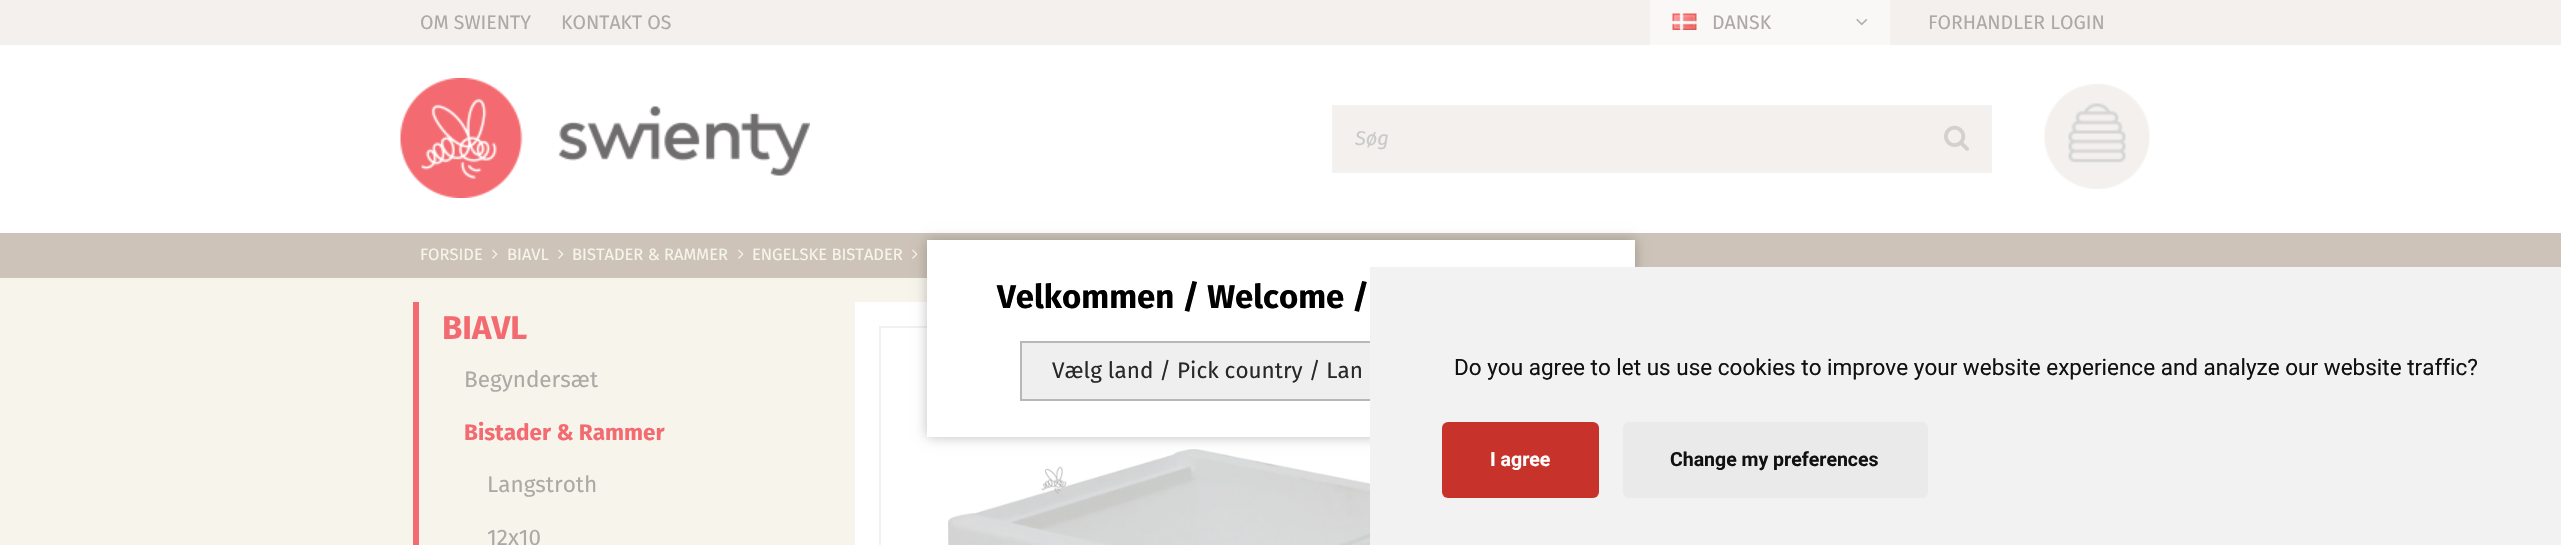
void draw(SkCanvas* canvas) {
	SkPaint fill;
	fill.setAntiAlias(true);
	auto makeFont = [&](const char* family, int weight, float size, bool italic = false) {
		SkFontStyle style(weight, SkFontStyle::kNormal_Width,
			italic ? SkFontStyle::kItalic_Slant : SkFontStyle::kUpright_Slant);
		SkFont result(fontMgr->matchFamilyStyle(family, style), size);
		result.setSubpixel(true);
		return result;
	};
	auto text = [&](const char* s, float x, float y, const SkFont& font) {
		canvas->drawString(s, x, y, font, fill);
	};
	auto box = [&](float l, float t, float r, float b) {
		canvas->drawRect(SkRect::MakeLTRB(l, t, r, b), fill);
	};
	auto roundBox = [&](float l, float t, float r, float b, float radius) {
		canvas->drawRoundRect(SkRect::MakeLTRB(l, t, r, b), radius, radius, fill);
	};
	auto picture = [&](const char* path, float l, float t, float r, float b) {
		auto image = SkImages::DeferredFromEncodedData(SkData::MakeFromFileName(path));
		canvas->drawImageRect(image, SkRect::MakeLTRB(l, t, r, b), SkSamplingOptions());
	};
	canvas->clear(0xFFF7F4EC);
	fill.setColor(0xFFF3F0ED);
	box(0, 0, 2561, 45);
	fill.setColor(0xFFF9F8F7);
	box(1650, 0, 1890, 45);
	picture("image0.png", 1672, 13, 1697, 30);
	picture("image1.png", 1856, 19, 1868, 26);
	fill.setColor(0xFFFFFFFF);
	box(0, 45, 2561, 233);
	picture("image2.png", 400, 78, 810, 198);
	fill.setColor(0xFFF3F0ED);
	canvas->drawRect(SkRect::MakeLTRB(1333, 106, 1991, 172), fill);
	fill.setStyle(SkPaint::kStroke_Style);
	fill.setStrokeWidth(2);
	fill.setColor(0xFFF2F2F2);
	canvas->drawRect(SkRect::MakeLTRB(1333, 106, 1991, 172), fill);
	picture("image3.png", 1944, 125, 1969, 151);
	picture("image4.png", 2044, 84, 2150, 189);
	fill.setStyle(SkPaint::kFill_Style);
	fill.setColor(0xFFCDC3B8);
	box(0, 233, 2561, 278);
	picture("image5.png", 492, 249, 498, 259);
	picture("image5.png", 558, 249, 564, 259);
	picture("image5.png", 738, 249, 744, 259);
	picture("image5.png", 912, 249, 918, 259);
	fill.setColor(0xFFF36B71);
	box(413, 302, 419, 545);
	fill.setColor(0xFFFFFFFF);
	box(855, 302, 1370, 545);
	fill.setStyle(SkPaint::kStroke_Style);
	fill.setColor(0xFFF3F0ED);
	canvas->drawRect(SkRect::MakeLTRB(880, 327, 1540, 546), fill);
	picture("image6.png", 948, 449, 1370, 545);
	fill.setStyle(SkPaint::kFill_Style);
	fill.setColor(0x40000000);
	fill.setMaskFilter(SkMaskFilter::MakeBlur(kNormal_SkBlurStyle, 6));
	canvas->drawRect(SkRect::MakeLTRB(927, 240, 1635, 437), fill);
	fill.setMaskFilter(nullptr);
	fill.setColor(0xFFFFFFFF);
	box(927, 240, 1635, 437);
	fill.setColor(0xFFEFEFEF);
	box(1022, 343, 1370, 399);
	fill.setStyle(SkPaint::kStroke_Style);
	fill.setColor(0xFFB7B7B7);
	canvas->drawRect(SkRect::MakeLTRB(1021, 342, 1541, 400), fill);
	fill.setStyle(SkPaint::kFill_Style);
	fill.setColor(0xFFF2F2F2);
	box(1370, 267, 2561, 545);
	fill.setColor(0xFFC7322A);
	roundBox(1442, 422, 1599, 498, 6);
	fill.setColor(0xFFEAEAEA);
	roundBox(1623, 422, 1928, 498, 6);
	auto font1 = makeFont("Fira Sans", 400, 19.5f);
	fill.setColor(0xFFADA9A5);
	text("OM SWIENTY", 420, 29, font1);
	text("KONTAKT OS", 561, 29, font1);
	text("DANSK", 1712, 29, font1);
	text("FORHANDLER LOGIN", 1928, 29, font1);
	auto font2 = makeFont("Fira Sans", 400, 20, true);
	fill.setColor(0xFFCACACA);
	text("Søg", 1355, 145, font2);
	auto font3 = makeFont("Fira Sans", 400, 16.5f);
	fill.setColor(0xFFF7F4EC);
	text("FORSIDE", 420, 260, font3);
	text("BIAVL", 507, 260, font3);
	text("BISTADER & RAMMER", 572, 260, font3);
	text("ENGELSKE BISTADER", 752, 260, font3);
	auto font4 = makeFont("Fira Sans", 700, 33);
	fill.setColor(0xFFF36B71);
	text("BIAVL", 442, 339, font4);
	auto font5 = makeFont("Fira Sans", 400, 22.5f);
	fill.setColor(0xFFADA9A5);
	text("Begyndersæt", 464, 387, font5);
	auto font6 = makeFont("Fira Sans", 700, 22.5f);
	fill.setColor(0xFFF36B71);
	text("Bistader & Rammer", 464, 440, font6);
	fill.setColor(0xFFADA9A5);
	text("Langstroth", 487, 492, font5);
	text("12x10", 487, 545, font5);
	fill.setColor(0xFF000000);
	text("Velkommen / Welcome /", 997, 308, font4);
	fill.setColor(0xFF282828);
	text("Vælg land / Pick country / Lan", 1052, 378, font5);
	auto font7 = makeFont("Roboto", 400, 22.5f);
	fill.setColor(0xFF111111);
	text("Do you agree to let us use cookies to improve your website experience and analyze our website traffic?", 1454, 375, font7);
	auto font8 = makeFont("Roboto", 700, 19.5f);
	fill.setColor(0xFFFFFFFF);
	text("I agree", 1490, 466, font8);
	fill.setColor(0xFF111111);
	text("Change my preferences", 1670, 466, font8);
}
